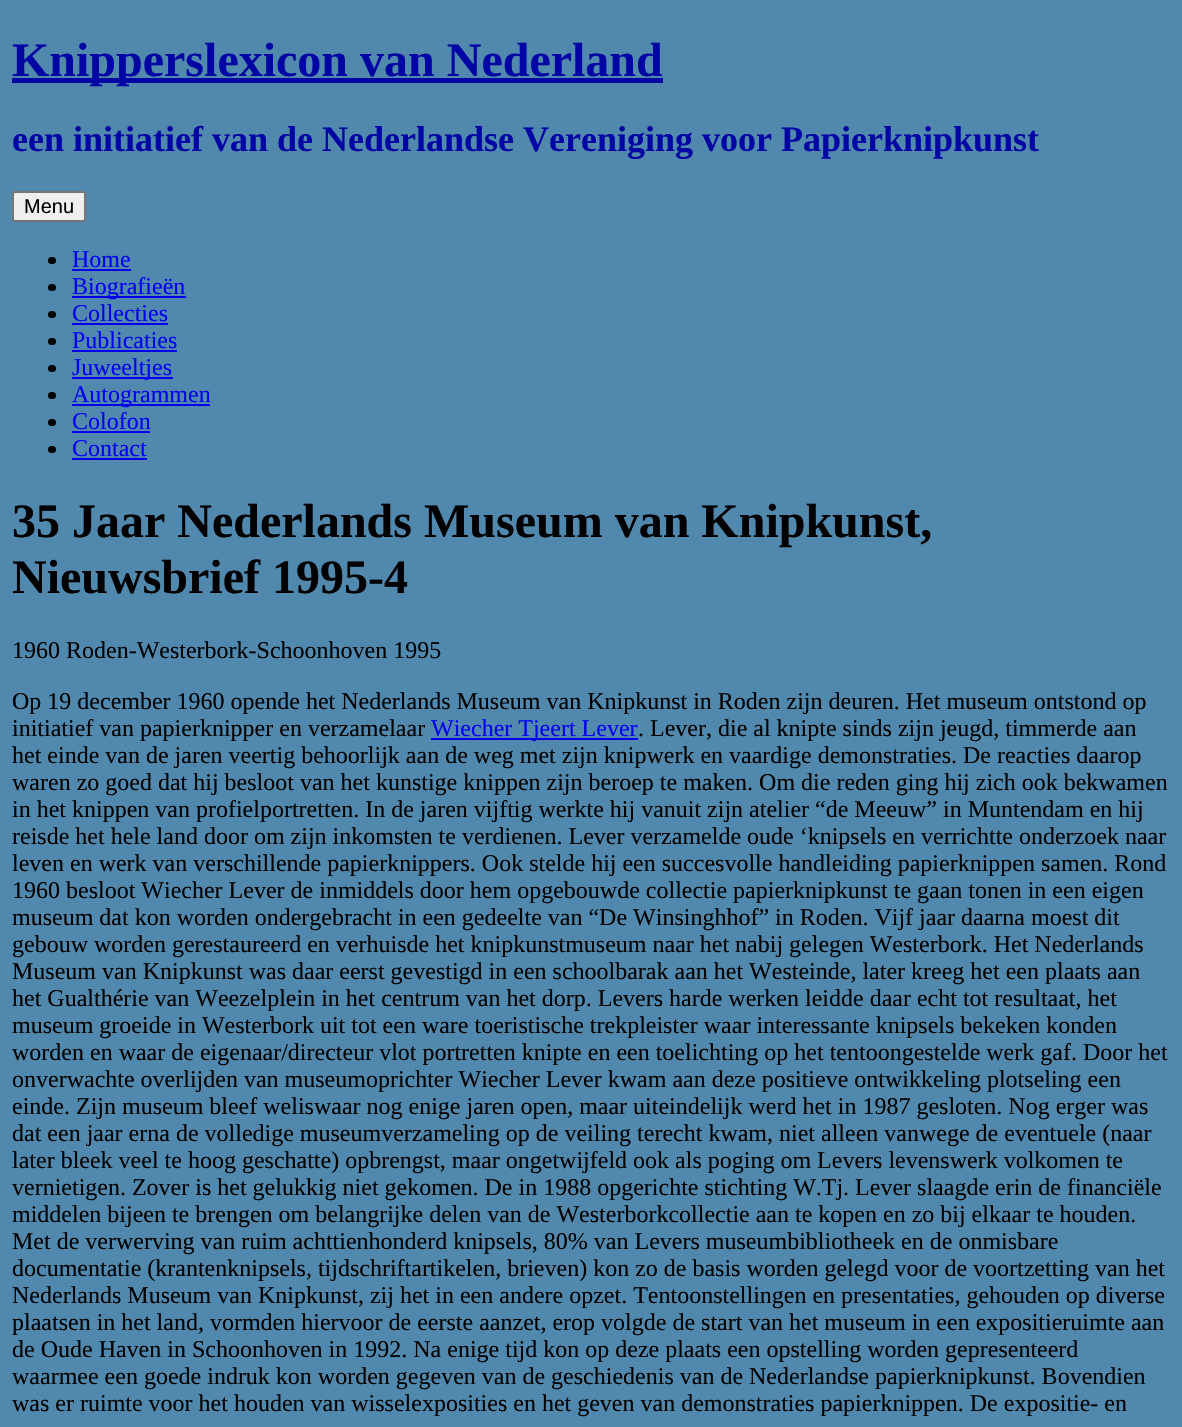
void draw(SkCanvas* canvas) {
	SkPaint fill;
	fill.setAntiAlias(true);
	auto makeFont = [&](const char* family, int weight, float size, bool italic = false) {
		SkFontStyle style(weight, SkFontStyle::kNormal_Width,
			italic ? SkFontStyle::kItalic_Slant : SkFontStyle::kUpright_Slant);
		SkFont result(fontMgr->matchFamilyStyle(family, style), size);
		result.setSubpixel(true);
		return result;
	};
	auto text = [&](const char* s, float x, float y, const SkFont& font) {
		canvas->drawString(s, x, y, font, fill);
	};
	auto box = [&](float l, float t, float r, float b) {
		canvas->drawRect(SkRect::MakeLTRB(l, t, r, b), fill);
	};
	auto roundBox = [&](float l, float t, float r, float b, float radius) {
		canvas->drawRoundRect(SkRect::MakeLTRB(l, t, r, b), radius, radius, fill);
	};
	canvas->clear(0xFF5189AE);
	fill.setColor(0xFF0005A3);
	box(12, 78, 663, 83);
	fill.setColor(0xFFEFEFEF);
	canvas->drawRoundRect(SkRect::MakeLTRB(13, 192, 85, 221), 2, 2, fill);
	fill.setStyle(SkPaint::kStroke_Style);
	fill.setStrokeWidth(2);
	fill.setColor(0xFF767676);
	canvas->drawRoundRect(SkRect::MakeLTRB(13, 192, 85, 221), 2, 2, fill);
	fill.setStyle(SkPaint::kFill_Style);
	fill.setColor(0xFF000000);
	roundBox(48, 257, 56, 264, 3.5f);
	fill.setColor(0xFF0000EE);
	box(72, 269, 131, 271);
	fill.setColor(0xFF000000);
	roundBox(48, 284, 56, 291, 3.5f);
	fill.setColor(0xFF0000EE);
	box(72, 296, 186, 298);
	fill.setColor(0xFF000000);
	roundBox(48, 311, 56, 318, 3.5f);
	fill.setColor(0xFF0000EE);
	box(72, 323, 168, 325);
	fill.setColor(0xFF000000);
	roundBox(48, 338, 56, 345, 3.5f);
	fill.setColor(0xFF0000EE);
	box(72, 350, 177, 352);
	fill.setColor(0xFF000000);
	roundBox(48, 365, 56, 372, 3.5f);
	fill.setColor(0xFF0000EE);
	box(72, 377, 173, 379);
	fill.setColor(0xFF000000);
	roundBox(48, 392, 56, 399, 3.5f);
	fill.setColor(0xFF0000EE);
	box(72, 404, 210, 406);
	fill.setColor(0xFF000000);
	roundBox(48, 419, 56, 426, 3.5f);
	fill.setColor(0xFF0000EE);
	box(72, 431, 150, 433);
	fill.setColor(0xFF000000);
	roundBox(48, 446, 56, 453, 3.5f);
	fill.setColor(0xFF0000EE);
	box(72, 458, 147, 460);
	box(431, 738, 638, 740);
	auto font1 = makeFont("Liberation Serif", 700, 48);
	fill.setColor(0xFF0005A3);
	text("Knipperslexicon van Nederland", 12, 76, font1);
	auto font2 = makeFont("Liberation Serif", 700, 36);
	text("een initiatief van de Nederlandse Vereniging voor Papierknipkunst", 12, 151, font2);
	auto font3 = makeFont("Liberation Sans", 400, 20);
	fill.setColor(0xFF000000);
	text("Menu", 24, 213, font3);
	auto font4 = makeFont("Liberation Serif", 400, 24);
	fill.setColor(0xFF0000EE);
	text("Home", 72, 267, font4);
	text("Biografieën", 72, 294, font4);
	text("Collecties", 72, 321, font4);
	text("Publicaties", 72, 348, font4);
	text("Juweeltjes", 72, 375, font4);
	text("Autogrammen", 72, 402, font4);
	text("Colofon", 72, 429, font4);
	text("Contact", 72, 456, font4);
	fill.setColor(0xFF000000);
	text("35 Jaar Nederlands Museum van Knipkunst,", 12, 537, font1);
	text("Nieuwsbrief 1995-4", 12, 593, font1);
	text("1960 Roden-Westerbork-Schoonhoven 1995", 12, 658, font4);
	text("Op 19 december 1960 opende het Nederlands Museum van Knipkunst in Roden zijn deuren. Het museum ontstond op", 12, 709, font4);
	text("initiatief van papierknipper en verzamelaar", 12, 736, font4);
	fill.setColor(0xFF0000EE);
	text("Wiecher Tjeert Lever", 431, 736, font4);
	fill.setColor(0xFF000000);
	text(". Lever, die al knipte sinds zijn jeugd, timmerde aan", 638, 736, font4);
	text("het einde van de jaren veertig behoorlijk aan de weg met zijn knipwerk en vaardige demonstraties. De reacties daarop", 12, 763, font4);
	text("waren zo goed dat hij besloot van het kunstige knippen zijn beroep te maken. Om die reden ging hij zich ook bekwamen", 12, 790, font4);
	text("in het knippen van profielportretten. In de jaren vijftig werkte hij vanuit zijn atelier “de Meeuw” in Muntendam en hij", 12, 817, font4);
	text("reisde het hele land door om zijn inkomsten te verdienen. Lever verzamelde oude ‘knipsels en verrichtte onderzoek naar", 12, 844, font4);
	text("leven en werk van verschillende papierknippers. Ook stelde hij een succesvolle handleiding papierknippen samen. Rond", 12, 871, font4);
	text("1960 besloot Wiecher Lever de inmiddels door hem opgebouwde collectie papierknipkunst te gaan tonen in een eigen", 12, 898, font4);
	text("museum dat kon worden ondergebracht in een gedeelte van “De Winsinghhof” in Roden. Vijf jaar daarna moest dit", 12, 925, font4);
	text("gebouw worden gerestaureerd en verhuisde het knipkunstmuseum naar het nabij gelegen Westerbork. Het Nederlands", 12, 952, font4);
	text("Museum van Knipkunst was daar eerst gevestigd in een schoolbarak aan het Westeinde, later kreeg het een plaats aan", 12, 979, font4);
	text("het Gualthérie van Weezelplein in het centrum van het dorp. Levers harde werken leidde daar echt tot resultaat, het", 12, 1006, font4);
	text("museum groeide in Westerbork uit tot een ware toeristische trekpleister waar interessante knipsels bekeken konden", 12, 1033, font4);
	text("worden en waar de eigenaar/directeur vlot portretten knipte en een toelichting op het tentoongestelde werk gaf. Door het", 12, 1060, font4);
	text("onverwachte overlijden van museumoprichter Wiecher Lever kwam aan deze positieve ontwikkeling plotseling een", 12, 1087, font4);
	text("einde. Zijn museum bleef weliswaar nog enige jaren open, maar uiteindelijk werd het in 1987 gesloten. Nog erger was", 12, 1114, font4);
	text("dat een jaar erna de volledige museumverzameling op de veiling terecht kwam, niet alleen vanwege de eventuele (naar", 12, 1141, font4);
	text("later bleek veel te hoog geschatte) opbrengst, maar ongetwijfeld ook als poging om Levers levenswerk volkomen te", 12, 1168, font4);
	text("vernietigen. Zover is het gelukkig niet gekomen. De in 1988 opgerichte stichting W.Tj. Lever slaagde erin de financiële", 12, 1195, font4);
	text("middelen bijeen te brengen om belangrijke delen van de Westerborkcollectie aan te kopen en zo bij elkaar te houden.", 12, 1222, font4);
	text("Met de verwerving van ruim achttienhonderd knipsels, 80% van Levers museumbibliotheek en de onmisbare", 12, 1249, font4);
	text("documentatie (krantenknipsels, tijdschriftartikelen, brieven) kon zo de basis worden gelegd voor de voortzetting van het", 12, 1276, font4);
	text("Nederlands Museum van Knipkunst, zij het in een andere opzet. Tentoonstellingen en presentaties, gehouden op diverse", 12, 1303, font4);
	text("plaatsen in het land, vormden hiervoor de eerste aanzet, erop volgde de start van het museum in een expositieruimte aan", 12, 1330, font4);
	text("de Oude Haven in Schoonhoven in 1992. Na enige tijd kon op deze plaats een opstelling worden gepresenteerd", 12, 1357, font4);
	text("waarmee een goede indruk kon worden gegeven van de geschiedenis van de Nederlandse papierknipkunst. Bovendien", 12, 1384, font4);
	text("was er ruimte voor het houden van wisselexposities en het geven van demonstraties papierknippen. De expositie- en", 12, 1411, font4);
}
